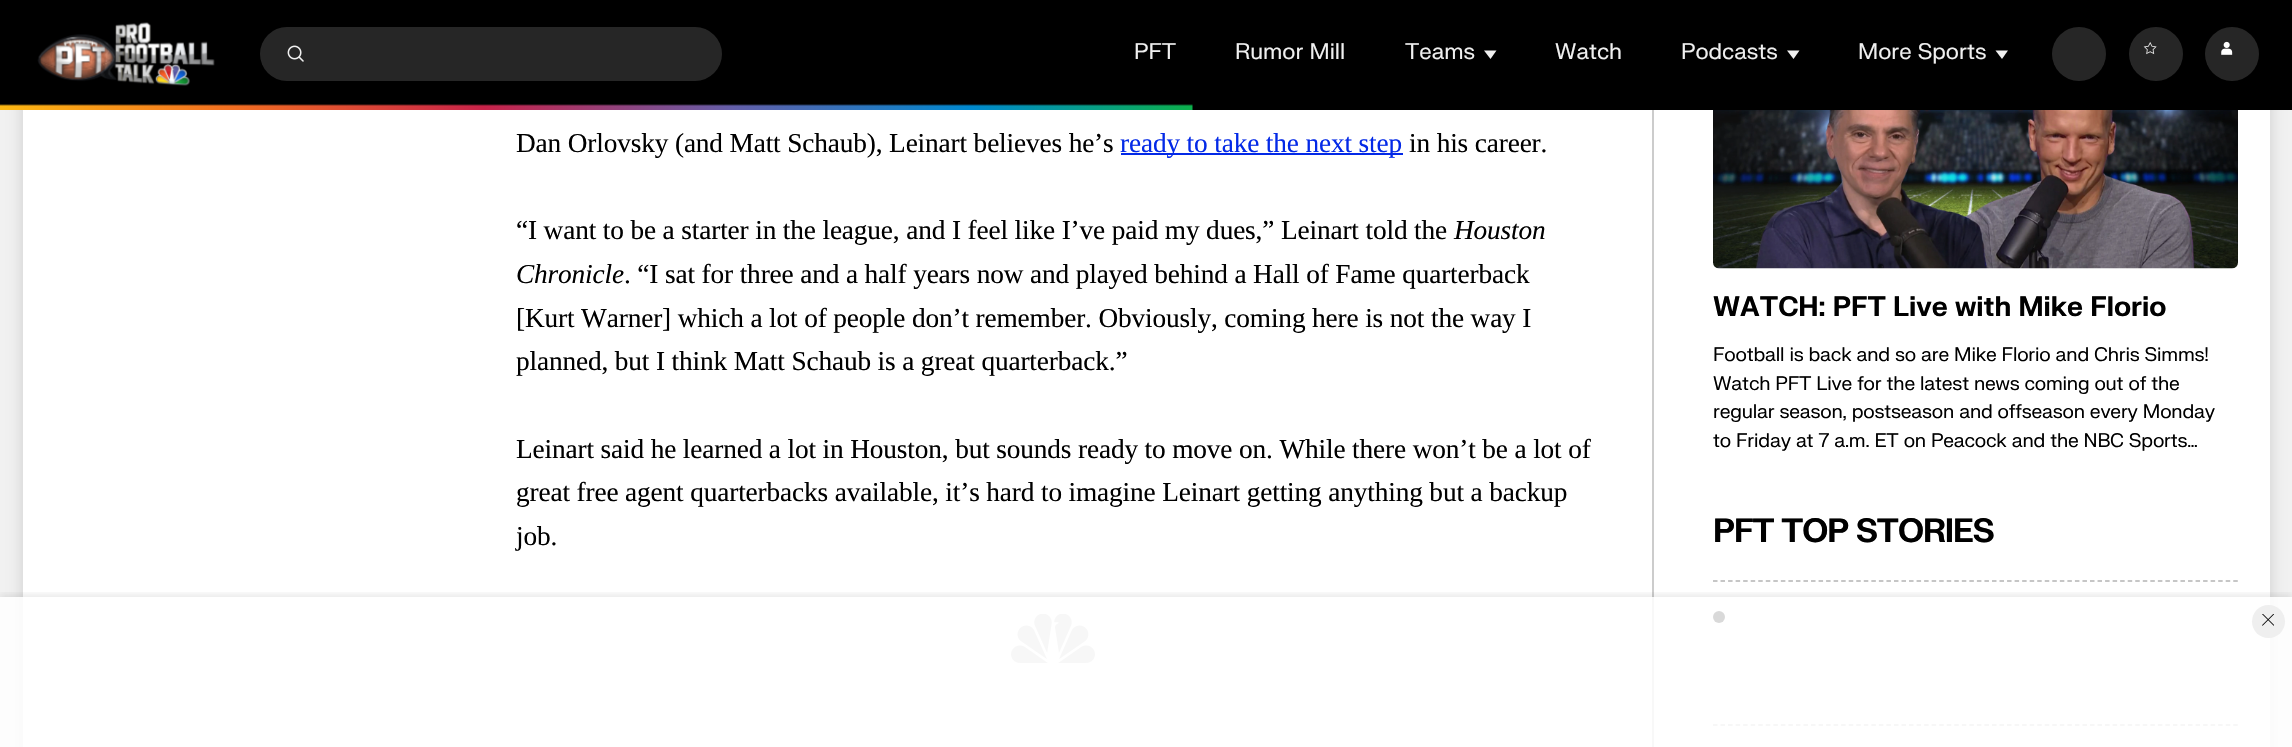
void draw(SkCanvas* canvas) {
	SkPaint fill;
	fill.setAntiAlias(true);
	auto makeFont = [&](const char* family, int weight, float size, bool italic = false) {
		SkFontStyle style(weight, SkFontStyle::kNormal_Width,
			italic ? SkFontStyle::kItalic_Slant : SkFontStyle::kUpright_Slant);
		SkFont result(fontMgr->matchFamilyStyle(family, style), size);
		result.setSubpixel(true);
		return result;
	};
	auto text = [&](const char* s, float x, float y, const SkFont& font) {
		canvas->drawString(s, x, y, font, fill);
	};
	auto spacedText = [&](const char* s, float x, float y, const SkFont& font, const SkPaint& ink, float letter, float word) {
		std::vector<SkGlyphID> glyphs(font.countText(s, strlen(s), SkTextEncoding::kUTF8));
		std::vector<float> xs(glyphs.size());
		font.textToGlyphs(s, strlen(s), SkTextEncoding::kUTF8, glyphs);
		font.getXPos(glyphs, xs, x);
		float extra = 0;
		for (size_t i = 0; i < glyphs.size(); i++) {
			xs[i] += extra;
			extra += letter + word * (glyphs[i] == font.unicharToGlyph(' '));
		}
		canvas->drawTextBlob(SkTextBlob::MakeFromPosHGlyphs(glyphs, xs, y, font), 0, 0, ink);
	};
	auto box = [&](float l, float t, float r, float b) {
		canvas->drawRect(SkRect::MakeLTRB(l, t, r, b), fill);
	};
	auto roundBox = [&](float l, float t, float r, float b, float radius) {
		canvas->drawRoundRect(SkRect::MakeLTRB(l, t, r, b), radius, radius, fill);
	};
	auto picture = [&](const char* path, float l, float t, float r, float b) {
		auto image = SkImages::DeferredFromEncodedData(SkData::MakeFromFileName(path));
		canvas->drawImageRect(image, SkRect::MakeLTRB(l, t, r, b), SkSamplingOptions());
	};
	canvas->clear(0xFFF1F1F1);
	fill.setColor(0x26000000);
	fill.setMaskFilter(SkMaskFilter::MakeBlur(kNormal_SkBlurStyle, 7.5f));
	canvas->drawRoundRect(SkRect::MakeLTRB(23, -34, 2270, 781), 11, 11, fill);
	fill.setMaskFilter(nullptr);
	fill.setColor(0xFF000000);
	box(0, 0, 2292, 110);
	picture("image0.png", 37, 22, 215, 86);
	fill.setColor(0xFF262626);
	roundBox(260, 27, 722, 81, 27);
	picture("image1.png", 287, 45, 304, 62);
	fill.setColor(0xFFF0F0F0);
	canvas->drawPath(SkPathBuilder().moveTo(1490.5f, 59).lineTo(1484, 50.5f).lineTo(1496.5f, 50.5f).close().detach(), fill);
	canvas->drawPath(SkPathBuilder().moveTo(1793.5f, 59).lineTo(1787, 50.5f).lineTo(1799.5f, 50.5f).close().detach(), fill);
	canvas->drawPath(SkPathBuilder().moveTo(2002, 59).lineTo(1995.5f, 50.5f).lineTo(2008, 50.5f).close().detach(), fill);
	fill.setColor(0xFF262626);
	canvas->drawCircle(2079, 54, 27, fill);
	canvas->drawCircle(2156, 54, 27, fill);
	picture("image2.png", 2143, 42, 2157, 55);
	canvas->drawCircle(2232, 54, 27, fill);
	picture("image3.png", 2221, 41, 2233, 55);
	picture("image4.png", 0, 104, 1193, 110);
	fill.setColor(0xFFFFFFFF);
	box(23, 110, 2270, 747);
	fill.setColor(0xFF0329E7);
	box(1121, 153, 1403, 155);
	picture("image5.png", 1011, 614, 1095, 663);
	fill.setColor(0xFFCCCCCC);
	box(1652, 110, 1654, 747);
	picture("image6.png", 1713, 110, 2238, 269);
	fill.setStyle(SkPaint::kStroke_Style);
	fill.setStrokeWidth(1.5f);
	fill.setColor(0xFFB3B3B3);
	fill.setPathEffect(SkDashPathEffect::Make({{4.5f, 3.04f}}, 0));
	canvas->drawPath(SkPathBuilder().moveTo(1713, 581).lineTo(2238, 581).detach(), fill);
	fill.setPathEffect(nullptr);
	fill.setStyle(SkPaint::kFill_Style);
	fill.setColor(0xFF000000);
	canvas->drawCircle(1719, 617, 6, fill);
	fill.setStyle(SkPaint::kStroke_Style);
	fill.setColor(0xFFB3B3B3);
	fill.setPathEffect(SkDashPathEffect::Make({{4.5f, 3.04f}}, 0));
	canvas->drawPath(SkPathBuilder().moveTo(1713, 725).lineTo(2238, 725).detach(), fill);
	fill.setPathEffect(nullptr);
	canvas->save();
	canvas->clipRect(SkRect::MakeLTRB(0, 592, 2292, 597));
	fill.setStyle(SkPaint::kFill_Style);
	fill.setColor(0x14000000);
	fill.setMaskFilter(SkMaskFilter::MakeBlur(kNormal_SkBlurStyle, 3));
	canvas->drawRect(SkRect::MakeLTRB(0, 594, 2292, 744), fill);
	fill.setMaskFilter(nullptr);
	canvas->restore();
	fill.setColor(0xD9FFFFFF);
	box(0, 597, 2292, 747);
	fill.setColor(0xFFEFEFEF);
	canvas->drawCircle(2268.5f, 621.5f, 16.5f, fill);
	picture("image7.png", 2262, 614, 2274, 626);
	auto font1 = makeFont("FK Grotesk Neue", 400, 22);
	fill.setColor(0xFFF0F0F0);
	text("PFT", 1134, 59, font1);
	text("Rumor Mill", 1235, 59, font1);
	text("Teams", 1405, 59, font1);
	text("Watch", 1555, 59, font1);
	text("Podcasts", 1681, 59, font1);
	text("More Sports", 1858, 59, font1);
	auto font2 = makeFont("Liberation Serif", 400, 27.3f);
	fill.setColor(0xFF000000);
	spacedText("Dan Orlovsky (and Matt Schaub), Leinart believes he’s", 516, 152, font2, fill, -0.14f, 0);
	fill.setColor(0xFF0329E7);
	spacedText("ready to take the next step", 1120, 152, font2, fill, -0.14f, 0);
	fill.setColor(0xFF000000);
	spacedText("in his career.", 1409, 152, font2, fill, -0.14f, 0);
	spacedText("“I want to be a starter in the league, and I feel like I’ve paid my dues,” Leinart told the", 516, 239, font2, fill, -0.14f, 0);
	auto font3 = makeFont("Liberation Serif", 400, 27.3f, true);
	spacedText("Houston", 1454, 239, font3, fill, -0.14f, 0);
	spacedText("Chronicle", 516, 283, font3, fill, -0.14f, 0);
	spacedText(". “I sat for three and a half years now and played behind a Hall of Fame quarterback", 624, 283, font2, fill, -0.14f, 0);
	spacedText("[Kurt Warner] which a lot of people don’t remember. Obviously, coming here is not the way I", 516, 327, font2, fill, -0.14f, 0);
	spacedText("planned, but I think Matt Schaub is a great quarterback.”", 516, 370, font2, fill, -0.14f, 0);
	spacedText("Leinart said he learned a lot in Houston, but sounds ready to move on. While there won’t be a lot of", 516, 458, font2, fill, -0.14f, 0);
	spacedText("great free agent quarterbacks available, it’s hard to imagine Leinart getting anything but a backup", 516, 501, font2, fill, -0.14f, 0);
	spacedText("job.", 516, 545, font2, fill, -0.14f, 0);
	auto font4 = makeFont("FK Grotesk Neue", 700, 27.3f);
	text("WATCH: PFT Live with Mike Florio", 1713, 316, font4);
	auto font5 = makeFont("FK Grotesk Neue", 400, 19.1f);
	spacedText("Football is back and so are Mike Florio and Chris Simms!", 1713, 361, font5, fill, -0.2f, 0);
	spacedText("Watch PFT Live for the latest news coming out of the", 1713, 390, font5, fill, -0.2f, 0);
	spacedText("regular season, postseason and offseason every Monday", 1713, 418, font5, fill, -0.2f, 0);
	spacedText("to Friday at 7 a.m. ET on Peacock and the NBC Sports…", 1713, 447, font5, fill, -0.2f, 0);
	auto font6 = makeFont("FK Grotesk Neue", 700, 32.75f);
	spacedText("PFT TOP STORIES", 1713, 542, font6, fill, -1, 0);
}
